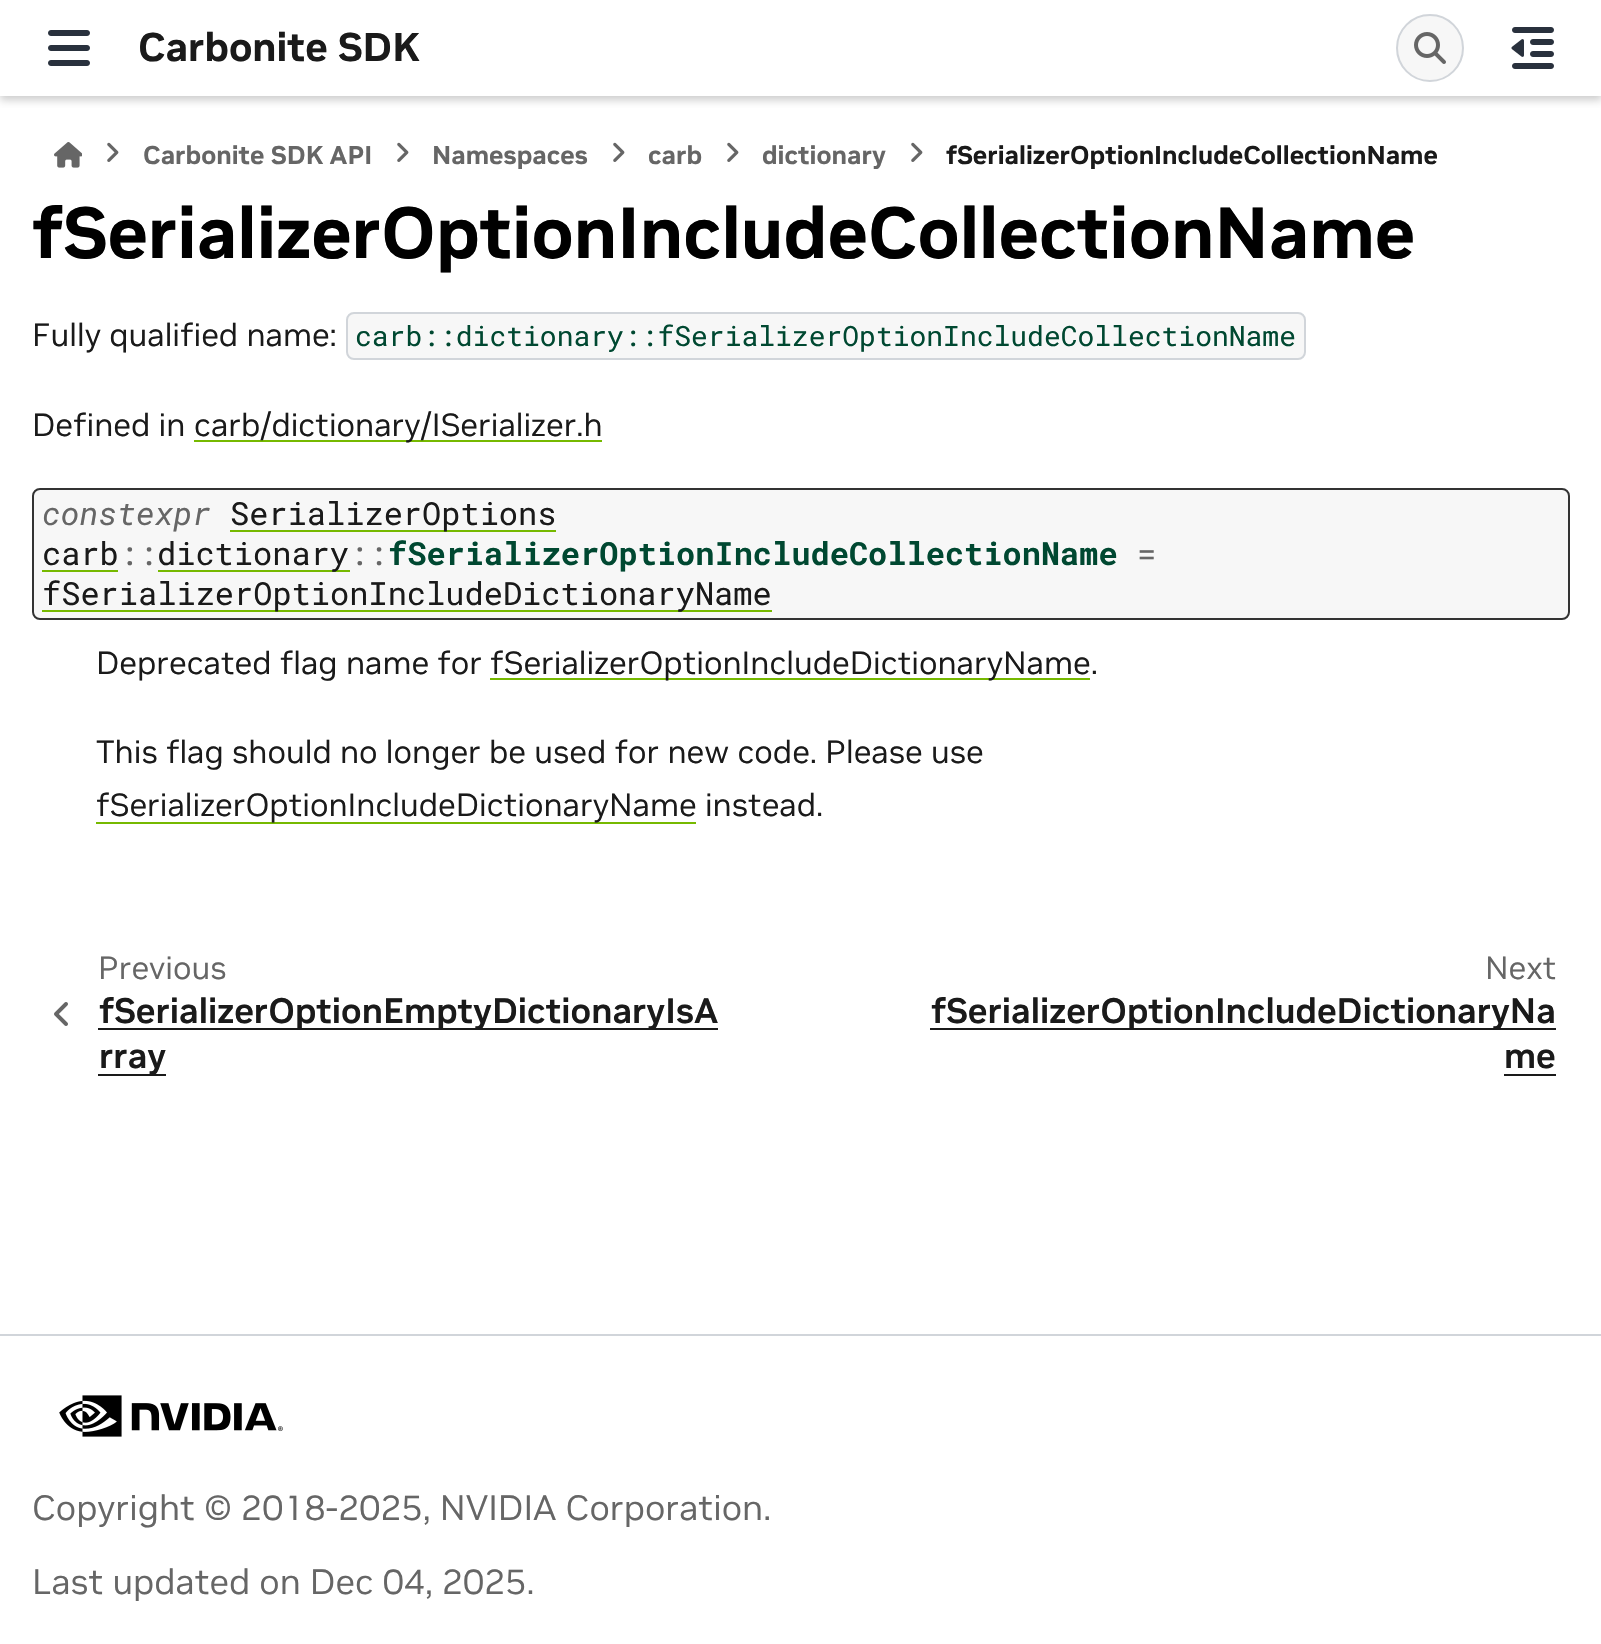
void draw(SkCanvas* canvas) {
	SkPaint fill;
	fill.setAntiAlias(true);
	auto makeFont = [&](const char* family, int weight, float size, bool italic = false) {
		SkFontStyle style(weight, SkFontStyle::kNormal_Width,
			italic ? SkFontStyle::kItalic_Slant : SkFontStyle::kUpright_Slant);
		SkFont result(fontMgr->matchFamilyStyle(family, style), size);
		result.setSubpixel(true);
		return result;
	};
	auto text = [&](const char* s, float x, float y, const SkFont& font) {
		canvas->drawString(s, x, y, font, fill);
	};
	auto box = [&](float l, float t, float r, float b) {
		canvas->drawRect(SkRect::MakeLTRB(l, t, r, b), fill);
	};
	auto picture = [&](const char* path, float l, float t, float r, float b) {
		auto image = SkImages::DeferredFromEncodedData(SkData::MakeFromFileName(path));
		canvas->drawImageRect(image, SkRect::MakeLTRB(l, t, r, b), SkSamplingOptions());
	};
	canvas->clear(0xFFFFFFFF);
	canvas->save();
	canvas->clipRect(SkRect::MakeLTRB(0, 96, 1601, 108));
	fill.setColor(0xFFCCCCCC);
	fill.setMaskFilter(SkMaskFilter::MakeBlur(kNormal_SkBlurStyle, 4));
	canvas->drawRect(SkRect::MakeLTRB(0, 4, 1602, 100), fill);
	fill.setMaskFilter(nullptr);
	canvas->restore();
	picture("image0.png", 48, 30, 90, 66);
	fill.setColor(0xFFF7F7F7);
	canvas->drawCircle(1430, 48, 33, fill);
	fill.setStyle(SkPaint::kStroke_Style);
	fill.setStrokeWidth(2);
	fill.setColor(0xFFD1D5DA);
	canvas->drawCircle(1430, 48, 33, fill);
	picture("image1.png", 1414, 32, 1446, 64);
	picture("image2.png", 1511, 27, 1554, 69);
	picture("image3.png", 54, 142, 82, 168);
	picture("image4.png", 107, 142, 119, 162);
	picture("image4.png", 397, 142, 409, 162);
	picture("image4.png", 613, 142, 625, 162);
	picture("image4.png", 727, 142, 739, 162);
	picture("image4.png", 911, 142, 923, 162);
	fill.setStyle(SkPaint::kFill_Style);
	fill.setColor(0xFFF7F7F7);
	canvas->drawRoundRect(SkRect::MakeLTRB(347, 313, 1305, 359), 7, 7, fill);
	fill.setStyle(SkPaint::kStroke_Style);
	fill.setColor(0xFFD1D5DA);
	canvas->drawRoundRect(SkRect::MakeLTRB(347, 313, 1305, 359), 7, 7, fill);
	fill.setStyle(SkPaint::kFill_Style);
	fill.setColor(0xFF76B900);
	box(194, 440, 602, 442);
	fill.setColor(0xFFF7F7F7);
	canvas->drawRoundRect(SkRect::MakeLTRB(33, 489, 1569, 619), 7, 7, fill);
	fill.setStyle(SkPaint::kStroke_Style);
	fill.setColor(0xFF333333);
	canvas->drawRoundRect(SkRect::MakeLTRB(33, 489, 1569, 619), 7, 7, fill);
	fill.setStyle(SkPaint::kFill_Style);
	fill.setColor(0xFF76B900);
	box(230, 530, 556, 532);
	box(42, 570, 118, 572);
	box(158, 570, 350, 572);
	box(42, 610, 772, 612);
	box(490, 678, 1090, 680);
	box(96, 822, 696, 824);
	picture("image5.png", 54, 1002, 68, 1026);
	fill.setColor(0xFF1A1A1A);
	box(98, 1028, 718, 1030);
	box(98, 1074, 166, 1076);
	box(930, 1028, 1556, 1030);
	box(1504, 1074, 1556, 1076);
	fill.setColor(0xFFD1D5DA);
	box(0, 1334, 1601, 1336);
	picture("image6.png", 59, 1395, 283, 1437);
	auto font1 = makeFont("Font", 700, 40);
	fill.setColor(0xFF1A1A1A);
	text("Carbonite SDK", 138, 61, font1);
	auto font2 = makeFont("Font", 700, 25.6f);
	fill.setColor(0xFF666666);
	text("Carbonite SDK API", 143, 164, font2);
	text("Namespaces", 432, 164, font2);
	text("carb", 648, 164, font2);
	text("dictionary", 762, 164, font2);
	fill.setColor(0xFF1A1A1A);
	text("fSerializerOptionIncludeCollectionName", 946, 164, font2);
	auto font3 = makeFont("Font", 700, 72);
	fill.setColor(0xFF000000);
	text("fSerializerOptionIncludeCollectionName", 32, 258, font3);
	auto font4 = makeFont("Font", 400, 32);
	fill.setColor(0xFF1A1A1A);
	text("Fully qualified name:", 32, 346, font4);
	auto font5 = makeFont("Roboto Mono", 400, 28);
	fill.setColor(0xFF004831);
	text("carb::dictionary::fSerializerOptionIncludeCollectionName", 355, 346, font5);
	fill.setColor(0xFF1A1A1A);
	text("Defined in", 32, 436, font4);
	text("carb/dictionary/ISerializer.h", 194, 436, font4);
	auto font6 = makeFont("Roboto Mono", 400, 32, true);
	fill.setColor(0xFF666666);
	text("constexpr", 42, 525, font6);
	auto font7 = makeFont("Roboto Mono", 400, 32);
	fill.setColor(0xFF1A1A1A);
	text("SerializerOptions", 230, 525, font7);
	text("carb", 42, 565, font7);
	fill.setColor(0xFF666666);
	text("::", 119, 565, font7);
	fill.setColor(0xFF1A1A1A);
	text("dictionary", 157, 565, font7);
	fill.setColor(0xFF666666);
	text("::", 349, 565, font7);
	auto font8 = makeFont("Roboto Mono", 700, 32);
	fill.setColor(0xFF004831);
	text("fSerializerOptionIncludeCollectionName", 388, 565, font8);
	fill.setColor(0xFF666666);
	text("=", 1137, 565, font7);
	fill.setColor(0xFF1A1A1A);
	text("fSerializerOptionIncludeDictionaryName", 42, 605, font7);
	text("Deprecated flag name for", 96, 674, font4);
	text("fSerializerOptionIncludeDictionaryName.", 490, 674, font4);
	text("This flag should no longer be used for new code. Please use", 96, 763, font4);
	text("fSerializerOptionIncludeDictionaryName instead.", 96, 816, font4);
	fill.setColor(0xFF666666);
	text("Previous", 98, 979, font4);
	auto font9 = makeFont("Font", 600, 35.2f);
	fill.setColor(0xFF1A1A1A);
	text("fSerializerOptionEmptyDictionaryIsA", 99, 1023, font9);
	text("rray", 99, 1068, font9);
	fill.setColor(0xFF666666);
	text("Next", 1485, 979, font4);
	fill.setColor(0xFF1A1A1A);
	text("fSerializerOptionIncludeDictionaryNa", 931, 1023, font9);
	text("me", 1504, 1068, font9);
	auto font10 = makeFont("Font", 400, 35.2f);
	fill.setColor(0xFF666666);
	text("Copyright © 2018-2025, NVIDIA Corporation.", 32, 1520, font10);
	text("Last updated on Dec 04, 2025.", 32, 1594, font10);
}
